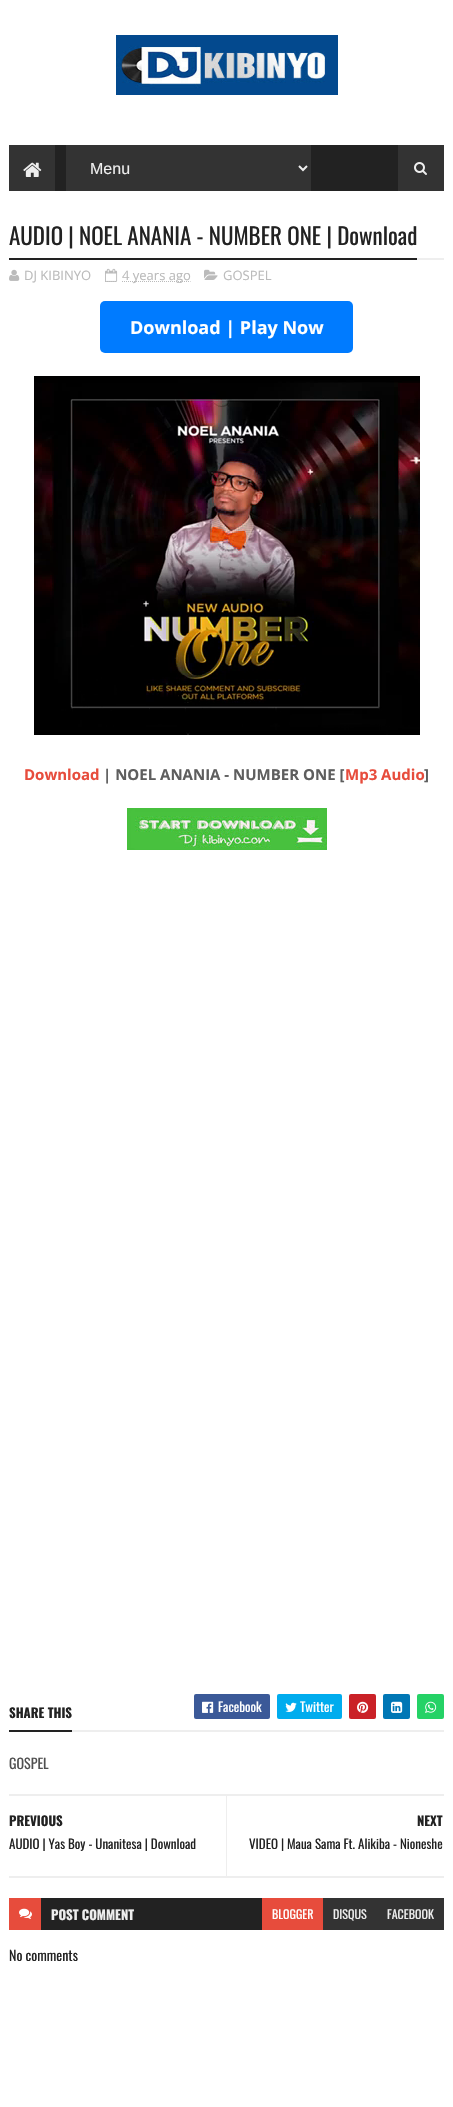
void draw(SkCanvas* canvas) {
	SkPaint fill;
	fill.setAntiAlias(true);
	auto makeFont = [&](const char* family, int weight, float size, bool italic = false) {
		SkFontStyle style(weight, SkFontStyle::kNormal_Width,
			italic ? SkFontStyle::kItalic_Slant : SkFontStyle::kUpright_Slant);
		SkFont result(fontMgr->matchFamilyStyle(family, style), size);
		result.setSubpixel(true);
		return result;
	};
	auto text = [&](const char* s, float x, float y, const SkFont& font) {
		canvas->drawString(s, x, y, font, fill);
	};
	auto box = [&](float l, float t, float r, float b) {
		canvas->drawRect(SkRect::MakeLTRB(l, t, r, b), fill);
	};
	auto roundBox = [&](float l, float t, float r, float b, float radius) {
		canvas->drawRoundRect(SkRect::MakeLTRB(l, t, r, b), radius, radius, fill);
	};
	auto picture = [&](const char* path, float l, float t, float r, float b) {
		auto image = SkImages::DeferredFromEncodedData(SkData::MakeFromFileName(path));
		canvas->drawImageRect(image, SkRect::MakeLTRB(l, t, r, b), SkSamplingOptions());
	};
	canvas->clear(0xFFFFFFFF);
	picture("image0.png", 116, 35, 338, 95);
	fill.setColor(0xFF222222);
	box(55, 145, 398, 191);
	fill.setColor(0xFF333333);
	box(9, 145, 55, 191);
	picture("image1.png", 23, 162, 42, 177);
	box(66, 145, 311, 191);
	fill.setStyle(SkPaint::kStroke_Style);
	fill.setStrokeWidth(2);
	fill.setColor(0xFFEEEEEE);
	canvas->drawPath(SkPathBuilder().moveTo(299, 166).lineTo(303, 170).lineTo(307, 166).detach(), fill);
	fill.setStyle(SkPaint::kFill_Style);
	fill.setColor(0xFF333333);
	box(398, 145, 444, 191);
	picture("image2.png", 414, 162, 427, 175);
	fill.setColor(0xFFEEEEEE);
	box(417, 258, 444, 260);
	fill.setColor(0xFF222222);
	box(9, 258, 417, 260);
	picture("image3.png", 9, 269, 20, 281);
	fill.setStyle(SkPaint::kStroke_Style);
	fill.setStrokeWidth(1);
	fill.setColor(0xFFBBBBBB);
	fill.setPathEffect(SkDashPathEffect::Make({{1, 1}}, 0));
	canvas->drawPath(SkPathBuilder().moveTo(105, 281.5f).lineTo(117, 281.5f).detach(), fill);
	fill.setPathEffect(nullptr);
	picture("image4.png", 105, 268, 118, 282);
	fill.setPathEffect(SkDashPathEffect::Make({{1, 1}}, 0));
	canvas->drawPath(SkPathBuilder().moveTo(122, 281.5f).lineTo(190.5f, 281.5f).detach(), fill);
	fill.setPathEffect(nullptr);
	picture("image5.png", 204, 269, 218, 280);
	fill.setStyle(SkPaint::kFill_Style);
	fill.setColor(0xFF007BFF);
	roundBox(100, 301, 353, 353, 5);
	picture("image6.png", 34, 376, 420, 735);
	picture("image7.png", 127, 808, 327, 850);
	fill.setColor(0xFFEEEEEE);
	box(72, 1730, 444, 1732);
	fill.setColor(0xFF222222);
	box(9, 1730, 72, 1732);
	fill.setColor(0xFF3B5998);
	roundBox(194, 1694, 270, 1719, 2);
	picture("image8.png", 202, 1701, 214, 1713);
	fill.setColor(0xFF00ACEE);
	roundBox(277, 1694, 342, 1719, 2);
	picture("image9.png", 285, 1702, 297, 1712);
	fill.setColor(0xFFCA2127);
	roundBox(349, 1694, 376, 1719, 2);
	picture("image10.png", 357, 1701, 369, 1713);
	fill.setColor(0xFF0077B5);
	roundBox(383, 1694, 410, 1719, 2);
	picture("image11.png", 391, 1701, 403, 1713);
	fill.setColor(0xFF25D266);
	roundBox(417, 1694, 444, 1719, 2);
	picture("image12.png", 425, 1701, 437, 1713);
	fill.setColor(0xFFEEEEEE);
	box(9, 1794, 444, 1796);
	box(9, 1876, 444, 1878);
	box(226, 1796, 227, 1876);
	fill.setColor(0xFF222222);
	box(41, 1898, 262, 1930);
	fill.setColor(0xFFE74C3C);
	box(9, 1898, 41, 1930);
	picture("image13.png", 19, 1908, 32, 1919);
	box(262, 1898, 323, 1930);
	fill.setColor(0xFF333333);
	box(323, 1898, 444, 1930);
	auto font1 = makeFont("Liberation Sans", 400, 16);
	fill.setColor(0xFFEEEEEE);
	text("Menu", 90, 174, font1);
	auto font2 = makeFont("Oswald", 400, 23);
	fill.setColor(0xFF222222);
	text("AUDIO | NOEL ANANIA - NUMBER ONE | Download", 9, 245, font2);
	auto font3 = makeFont("Open Sans", 400, 13);
	fill.setColor(0xFFBBBBBB);
	text("DJ KIBINYO", 24, 280, font3);
	text("4 years ago", 122, 280, font3);
	text("GOSPEL", 223, 280, font3);
	auto font4 = makeFont("Open Sans", 700, 18);
	fill.setColor(0xFFFFFFFF);
	text("Download | Play Now", 130, 334, font4);
	auto font5 = makeFont("Open Sans", 700, 15);
	fill.setColor(0xFFE74C3C);
	text("Download", 24, 780, font5);
	fill.setColor(0xFF5E5E5E);
	text("| NOEL ANANIA - NUMBER ONE [", 103, 780, font5);
	fill.setColor(0xFFE74C3C);
	text("Mp3 Audio", 345, 780, font5);
	fill.setColor(0xFF5E5E5E);
	text("]", 424, 780, font5);
	auto font6 = makeFont("Oswald", 700, 13);
	fill.setColor(0xFF222222);
	text("SHARE THIS", 9, 1718, font6);
	auto font7 = makeFont("Oswald", 400, 13);
	fill.setColor(0xFFFFFFFF);
	text("Facebook", 218, 1712, font7);
	text("Twitter", 300, 1712, font7);
	auto font8 = makeFont("Oswald", 400, 14);
	fill.setColor(0xFF4F4F4F);
	text("GOSPEL", 9, 1769, font8);
	fill.setColor(0xFF222222);
	text("PREVIOUS", 9, 1826, font6);
	text("AUDIO | Yas Boy - Unanitesa | Download", 9, 1849, font7);
	text("NEXT", 417, 1826, font6);
	text("VIDEO | Maua Sama Ft. Alikiba - Nioneshe", 249, 1849, font7);
	fill.setColor(0xFFEEEEEE);
	text("POST COMMENT", 51, 1920, font6);
	auto font9 = makeFont("Oswald", 400, 12);
	fill.setColor(0xFFFFFFFF);
	text("BLOGGER", 272, 1919, font9);
	fill.setColor(0xFFEEEEEE);
	text("DISQUS", 333, 1919, font9);
	text("FACEBOOK", 387, 1919, font9);
	fill.setColor(0xFF222222);
	text("No comments", 9, 1961, font8);
}
